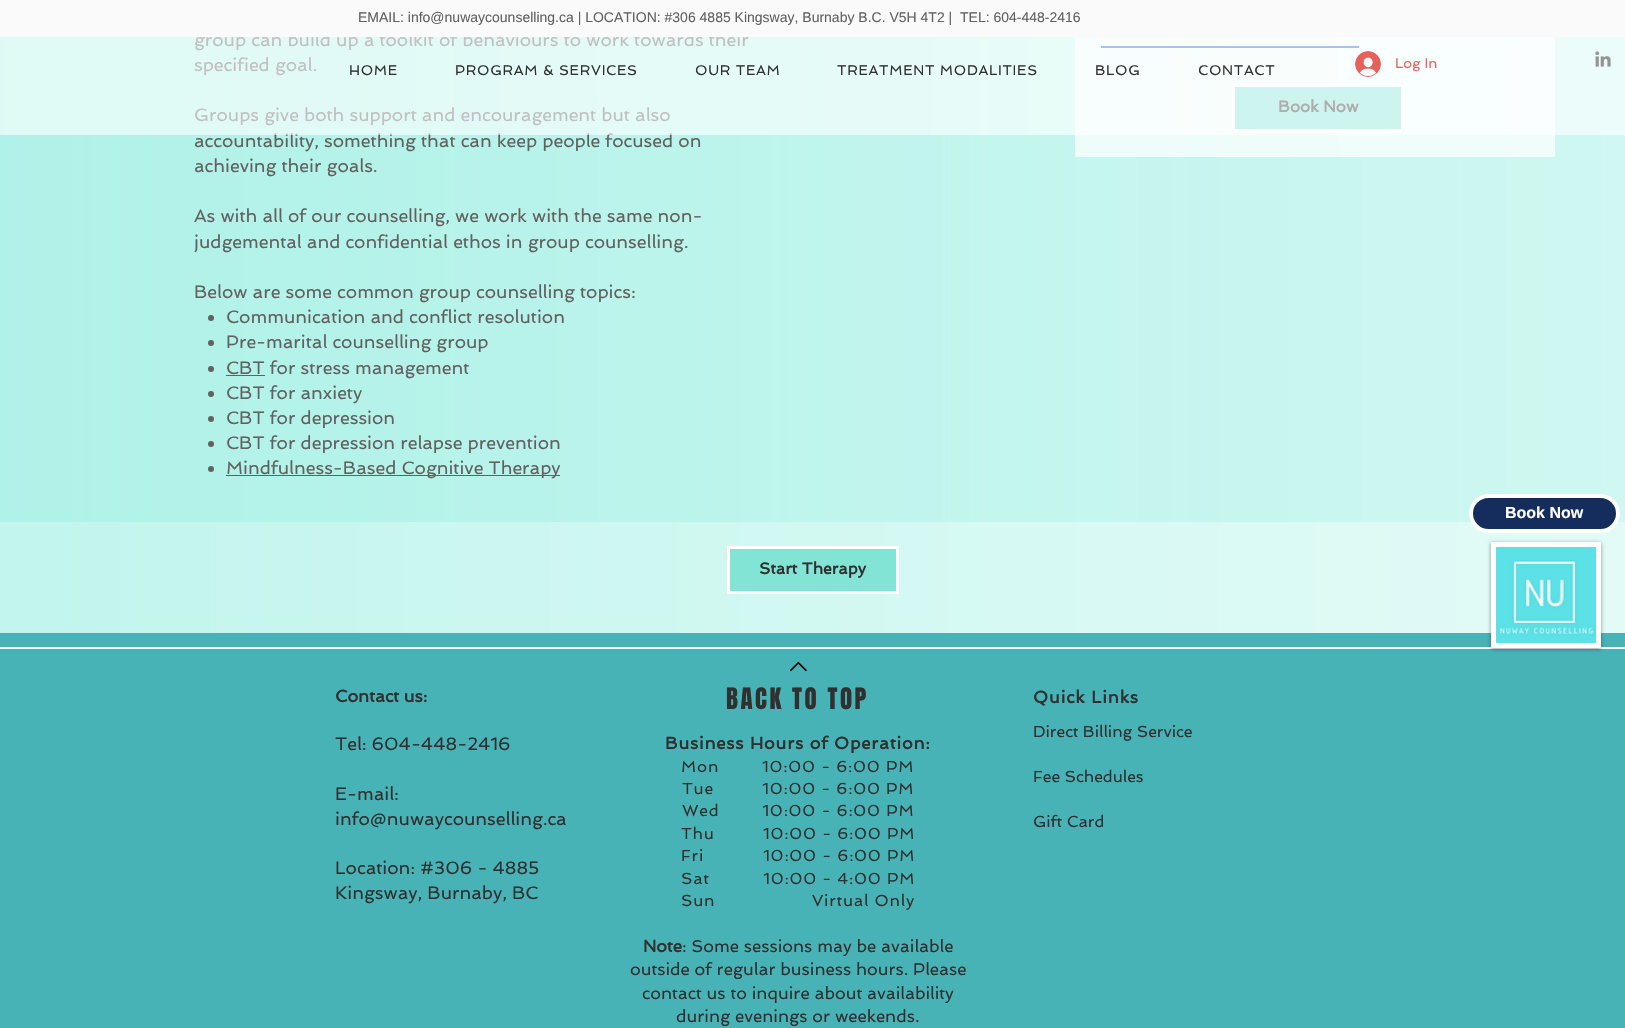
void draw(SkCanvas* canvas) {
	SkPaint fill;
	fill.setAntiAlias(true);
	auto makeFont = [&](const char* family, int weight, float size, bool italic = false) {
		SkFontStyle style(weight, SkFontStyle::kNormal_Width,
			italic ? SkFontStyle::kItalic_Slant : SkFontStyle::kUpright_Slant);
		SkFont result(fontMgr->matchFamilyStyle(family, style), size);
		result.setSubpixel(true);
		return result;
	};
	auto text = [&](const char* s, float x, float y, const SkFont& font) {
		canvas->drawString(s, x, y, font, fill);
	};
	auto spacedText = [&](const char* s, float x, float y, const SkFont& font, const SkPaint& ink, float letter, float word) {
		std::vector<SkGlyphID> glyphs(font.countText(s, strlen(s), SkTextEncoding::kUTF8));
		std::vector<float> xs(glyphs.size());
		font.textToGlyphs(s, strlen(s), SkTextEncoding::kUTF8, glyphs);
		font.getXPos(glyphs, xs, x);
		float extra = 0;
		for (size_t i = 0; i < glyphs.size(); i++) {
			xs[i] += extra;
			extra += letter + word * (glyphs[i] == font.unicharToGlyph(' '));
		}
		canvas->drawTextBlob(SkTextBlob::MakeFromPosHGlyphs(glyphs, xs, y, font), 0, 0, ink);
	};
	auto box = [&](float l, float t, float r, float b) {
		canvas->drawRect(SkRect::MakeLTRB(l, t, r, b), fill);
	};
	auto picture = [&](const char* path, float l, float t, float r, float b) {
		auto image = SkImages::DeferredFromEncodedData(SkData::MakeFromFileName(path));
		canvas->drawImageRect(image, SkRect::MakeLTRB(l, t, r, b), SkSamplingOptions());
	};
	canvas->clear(0xFFFFFFFF);
	{
		const SkColor colors[] = {0xFFC1F5ED, 0xFFE3FBF7};
		const float stops[] = {0, 1};
		const SkPoint ends[] = {{0, -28}, {1625, -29}};
		fill.setShader(SkGradientShader::MakeLinear(ends, colors, stops, 2, SkTileMode::kClamp));
		fill.setAlpha(255);
	}
	box(0, 37, 1625, 633);
	{
		const SkColor colors[] = {0xD9ACF1E7, 0x73ACF1E7};
		const float stops[] = {0, 1};
		const SkPoint ends[] = {{0, -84}, {975, -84}};
		fill.setShader(SkGradientShader::MakeLinear(ends, colors, stops, 2, SkTileMode::kClamp));
		fill.setAlpha(255);
	}
	box(0, 37, 975, 522);
	fill.setShader(nullptr);
	fill.setColor(0xFF616161);
	canvas->drawCircle(211, 318, 3, fill);
	canvas->drawCircle(211, 343, 3, fill);
	canvas->drawCircle(211, 369, 3, fill);
	box(226, 375, 265, 376);
	canvas->drawCircle(211, 394, 3, fill);
	canvas->drawCircle(211, 419, 3, fill);
	canvas->drawCircle(211, 444, 3, fill);
	canvas->drawCircle(211, 469, 3, fill);
	box(226, 475, 560, 476);
	{
		const SkColor colors[] = {0x73ACF1E7, 0x59ACF1E7};
		const float stops[] = {0, 1};
		const SkPoint ends[] = {{975, -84}, {1625, -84}};
		fill.setShader(SkGradientShader::MakeLinear(ends, colors, stops, 2, SkTileMode::kClamp));
		fill.setAlpha(255);
	}
	box(975, 37, 1625, 522);
	fill.setShader(nullptr);
	fill.setColor(0xB3FFFFFF);
	box(1075, 37, 1555, 157);
	fill.setColor(0xFF1D67CD);
	box(1101, 46, 1359, 48);
	fill.setColor(0xFF82E4D5);
	canvas->drawRect(SkRect::MakeLTRB(1233.5f, 85.5f, 1402.5f, 130.5f), fill);
	fill.setStyle(SkPaint::kStroke_Style);
	fill.setStrokeWidth(3);
	fill.setColor(0xFFFFFFFF);
	canvas->drawRect(SkRect::MakeLTRB(1233.5f, 85.5f, 1402.5f, 130.5f), fill);
	fill.setStyle(SkPaint::kFill_Style);
	fill.setColor(0xFF82E4D5);
	canvas->drawRect(SkRect::MakeLTRB(728.5f, 547.5f, 897.5f, 592.5f), fill);
	fill.setStyle(SkPaint::kStroke_Style);
	fill.setColor(0xFFFFFFFF);
	canvas->drawRect(SkRect::MakeLTRB(728.5f, 547.5f, 897.5f, 592.5f), fill);
	fill.setStyle(SkPaint::kFill_Style);
	fill.setColor(0xFF142D5C);
	canvas->drawRoundRect(SkRect::MakeLTRB(1471, 496, 1618, 531), 17.5f, 17.5f, fill);
	fill.setStyle(SkPaint::kStroke_Style);
	fill.setStrokeWidth(4);
	fill.setColor(0xFFFFFFFF);
	canvas->drawRoundRect(SkRect::MakeLTRB(1471, 496, 1618, 531), 17.5f, 17.5f, fill);
	fill.setStyle(SkPaint::kFill_Style);
	fill.setColor(0xFF48B3B7);
	box(0, 633, 1625, 1028);
	fill.setColor(0xFFFFFFFF);
	box(0, 647, 1625, 649);
	fill.setColor(0x66000000);
	fill.setMaskFilter(SkMaskFilter::MakeBlur(kNormal_SkBlurStyle, 2));
	canvas->drawRect(SkRect::MakeLTRB(1491, 543, 1601, 649), fill);
	fill.setMaskFilter(nullptr);
	fill.setColor(0xFFFFFFFF);
	box(1491, 542, 1601, 648);
	picture("image2.png", 1496, 547, 1596, 643);
	picture("image3.png", 790, 661, 807, 672);
	auto font1 = makeFont("Spinnaker", 400, 18);
	fill.setColor(0xFF616161);
	text("group can build up a toolkit of behaviours to work towards their", 194, 46, font1);
	fill.setColor(0xFFFAFAFA);
	box(0, 0, 1625, 37);
	auto font2 = makeFont("Liberation Sans", 400, 14);
	fill.setColor(0xFF616161);
	text("EMAIL: info@nuwaycounselling.ca | LOCATION: #306 4885 Kingsway, Burnaby B.C. V5H 4T2 |  TEL: 604-448-2416", 358, 22, font2);
	text("specified goal.", 194, 71, font1);
	text("Groups give both support and encouragement but also", 194, 121, font1);
	text("accountability, something that can keep people focused on", 194, 147, font1);
	text("achieving their goals.", 194, 172, font1);
	text("As with all of our counselling, we work with the same non-", 194, 222, font1);
	text("judgemental and confidential ethos in group counselling.", 194, 248, font1);
	text("Below are some common group counselling topics:", 194, 298, font1);
	text("Communication and conflict resolution", 226, 323, font1);
	text("Pre-marital counselling group", 226, 348, font1);
	text("CBT for stress management", 226, 374, font1);
	text("CBT for anxiety", 226, 399, font1);
	text("CBT for depression", 226, 424, font1);
	text("CBT for depression relapse prevention", 226, 449, font1);
	text("Mindfulness-Based Cognitive Therapy", 226, 474, font1);
	auto font3 = makeFont("Spinnaker", 700, 16);
	fill.setColor(0xFF303030);
	text("Book Now", 1278, 112, font3);
	fill.setColor(0x99FFFFFF);
	box(0, 37, 1625, 135);
	picture("image1.png", 1595, 51, 1611, 67);
	picture("image0.png", 1355, 51, 1381, 77);
	auto font4 = makeFont("Spinnaker", 400, 14);
	fill.setColor(0xFFE6615C);
	text("Log In", 1395, 68, font4);
	fill.setColor(0xFF303030);
	spacedText("CONTACT", 1198, 75, font4, fill, 0.7f, 0);
	spacedText("BLOG", 1095, 75, font4, fill, 0.7f, 0);
	spacedText("TREATMENT MODALITIES", 837, 75, font4, fill, 0.7f, 0);
	spacedText("OUR TEAM", 695, 75, font4, fill, 0.7f, 0);
	spacedText("PROGRAM & SERVICES", 455, 75, font4, fill, 0.7f, 0);
	spacedText("HOME", 349, 75, font4, fill, 0.7f, 0);
	text("Start Therapy", 759, 574, font3);
	auto font5 = makeFont("Liberation Sans", 700, 16);
	fill.setColor(0xFFFFFFFF);
	text("Book Now", 1505, 518, font5);
	auto font6 = makeFont("Spinnaker", 700, 17);
	fill.setColor(0xFF303030);
	text("Contact us:", 335, 702, font6);
	text("Tel: 604-448-2416", 335, 750, font1);
	text("E-mail:", 335, 800, font1);
	text("info@nuwaycounselling.ca", 335, 825, font1);
	text("Location: #306 - 4885", 335, 874, font1);
	text("Kingsway, Burnaby, BC", 335, 899, font1);
	auto font7 = makeFont("Anton", 400, 25);
	spacedText("BACK TO TOP", 726, 709, font7, fill, 2.5f, 0);
	spacedText("Quick Links", 1033, 703, font6, fill, 0.9f, 0);
	auto font8 = makeFont("Spinnaker", 400, 16);
	text("Direct Billing Service", 1033, 737, font8);
	text("Fee Schedules", 1033, 782, font8);
	text("Gift Card", 1033, 827, font8);
	spacedText("Business Hours of Operation:", 665, 749, font6, fill, 0.8f, 0);
	spacedText("Mon        10:00 - 6:00 PM", 681, 772, font8, fill, 0.8f, 0);
	spacedText("Tue         10:00 - 6:00 PM", 682, 794, font8, fill, 0.8f, 0);
	spacedText("Wed        10:00 - 6:00 PM", 682, 816, font8, fill, 0.8f, 0);
	spacedText("Thu         10:00 - 6:00 PM", 681, 839, font8, fill, 0.8f, 0);
	spacedText("Fri           10:00 - 6:00 PM", 681, 861, font8, fill, 0.8f, 0);
	spacedText("Sat          10:00 - 4:00 PM", 681, 884, font8, fill, 0.8f, 0);
	spacedText("Sun                  Virtual Only", 681, 906, font8, fill, 0.8f, 0);
	text("Note", 643, 952, font6);
	auto font9 = makeFont("Spinnaker", 400, 17);
	text(": Some sessions may be available", 682, 952, font9);
	text("outside of regular business hours. Please", 630, 975, font9);
	text("contact us to inquire about availability", 642, 999, font9);
	text("during evenings or weekends.", 676, 1022, font9);
}
